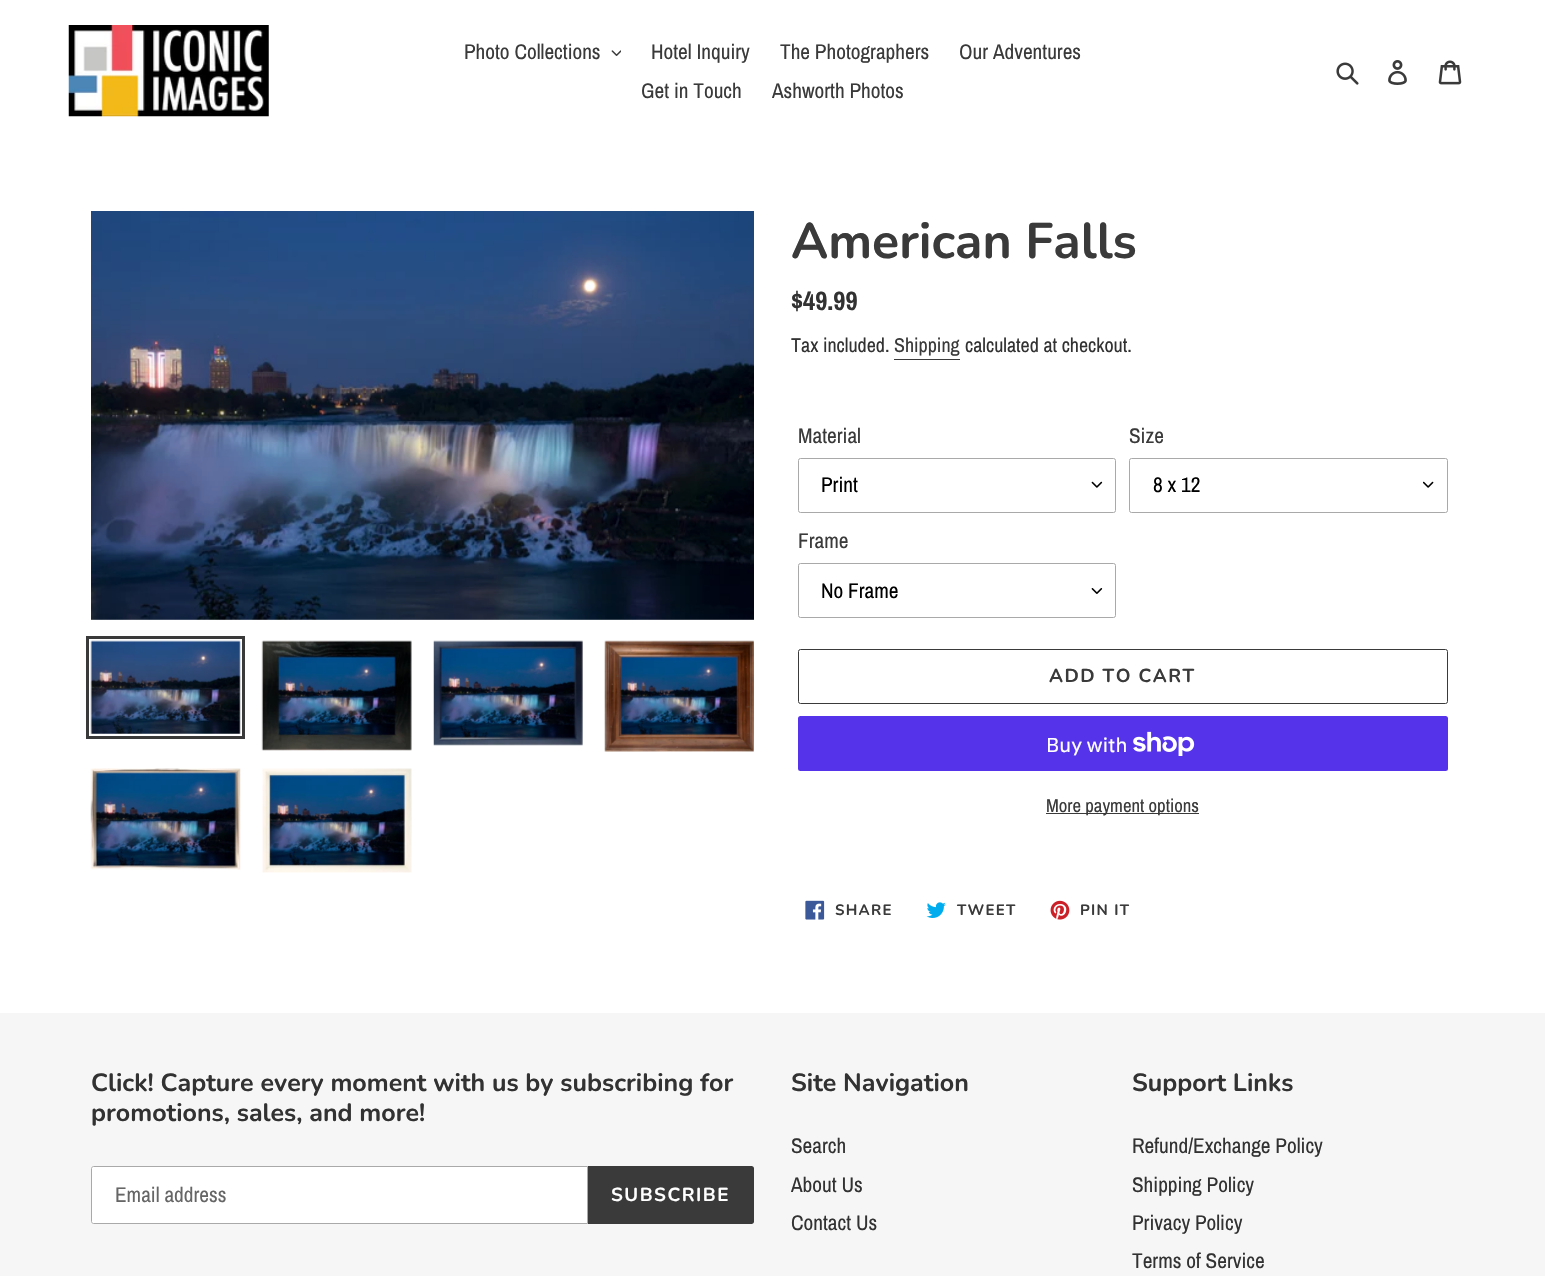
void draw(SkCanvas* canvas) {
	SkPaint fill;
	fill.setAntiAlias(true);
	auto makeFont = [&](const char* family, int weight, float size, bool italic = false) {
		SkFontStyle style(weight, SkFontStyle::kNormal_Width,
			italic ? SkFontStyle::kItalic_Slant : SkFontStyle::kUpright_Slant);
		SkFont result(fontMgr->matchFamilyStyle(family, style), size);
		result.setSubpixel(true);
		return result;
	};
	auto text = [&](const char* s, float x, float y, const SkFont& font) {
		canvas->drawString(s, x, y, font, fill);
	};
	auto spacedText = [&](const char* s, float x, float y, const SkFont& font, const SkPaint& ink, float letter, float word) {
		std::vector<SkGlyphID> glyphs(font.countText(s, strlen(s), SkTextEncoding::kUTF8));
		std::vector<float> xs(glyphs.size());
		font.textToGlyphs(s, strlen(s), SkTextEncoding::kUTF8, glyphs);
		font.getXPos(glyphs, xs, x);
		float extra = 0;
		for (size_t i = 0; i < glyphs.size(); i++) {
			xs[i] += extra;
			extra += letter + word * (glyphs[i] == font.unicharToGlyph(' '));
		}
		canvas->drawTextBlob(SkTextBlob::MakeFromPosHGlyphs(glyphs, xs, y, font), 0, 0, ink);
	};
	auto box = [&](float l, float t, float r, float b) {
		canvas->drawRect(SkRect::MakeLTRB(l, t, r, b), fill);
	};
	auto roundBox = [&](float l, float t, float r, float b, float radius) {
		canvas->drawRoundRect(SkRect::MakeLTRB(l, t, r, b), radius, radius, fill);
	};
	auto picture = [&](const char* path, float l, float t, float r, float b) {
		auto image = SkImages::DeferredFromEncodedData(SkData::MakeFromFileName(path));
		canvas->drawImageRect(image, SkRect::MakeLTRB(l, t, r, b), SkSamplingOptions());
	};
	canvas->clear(0xFFFFFFFF);
	picture("image0.png", 68, 25, 269, 117);
	picture("image1.png", 611, 50, 621, 56);
	picture("image2.png", 1336, 62, 1359, 85);
	picture("image3.png", 1388, 60, 1407, 85);
	picture("image4.png", 1438, 60, 1462, 85);
	picture("image5.png", 91, 211, 754, 620);
	fill.setStyle(SkPaint::kStroke_Style);
	fill.setStrokeWidth(3);
	fill.setColor(0xFF3A3A3A);
	canvas->drawRect(SkRect::MakeLTRB(87.5f, 637.5f, 243.5f, 737.5f), fill);
	picture("image6.png", 90, 640, 241, 734);
	picture("image7.png", 261, 640, 412, 751);
	picture("image8.png", 433, 640, 583, 746);
	picture("image9.png", 604, 640, 754, 752);
	picture("image10.png", 90, 768, 241, 870);
	picture("image11.png", 262, 768, 412, 873);
	fill.setStyle(SkPaint::kFill_Style);
	box(894, 359, 960, 360);
	picture("image12.png", 1091, 481, 1103, 488);
	fill.setStyle(SkPaint::kStroke_Style);
	fill.setStrokeWidth(1);
	fill.setColor(0xFFA9A9A9);
	canvas->drawRoundRect(SkRect::MakeLTRB(798.5f, 458.5f, 1115.5f, 512.5f), 2, 2, fill);
	picture("image13.png", 1423, 481, 1434, 488);
	canvas->drawRoundRect(SkRect::MakeLTRB(1129.5f, 458.5f, 1447.5f, 512.5f), 2, 2, fill);
	picture("image14.png", 1091, 588, 1103, 594);
	canvas->drawRoundRect(SkRect::MakeLTRB(798.5f, 563.5f, 1115.5f, 617.5f), 2, 2, fill);
	fill.setColor(0xFF3A3A3A);
	canvas->drawRoundRect(SkRect::MakeLTRB(798.5f, 649.5f, 1447.5f, 703.5f), 2, 2, fill);
	fill.setStyle(SkPaint::kFill_Style);
	fill.setColor(0xFF5433EB);
	roundBox(798, 716, 1448, 771, 2.5f);
	picture("image15.png", 1133, 731, 1195, 756);
	fill.setColor(0xFF3A3A3A);
	box(1046, 813, 1199, 814);
	picture("image16.png", 805, 900, 825, 920);
	picture("image17.png", 926, 902, 946, 918);
	picture("image18.png", 1050, 900, 1070, 920);
	fill.setColor(0xFFF6F6F6);
	box(0, 1013, 1545, 1276);
	fill.setColor(0xFFFFFFFF);
	canvas->drawPath(SkPathBuilder().moveTo(93.5f, 1166.5f).lineTo(587.5f, 1166.5f).lineTo(587.5f, 1223.5f).lineTo(93.5f, 1223.5f).cubicTo(92.5f, 1223.5f, 91.5f, 1222.5f, 91.5f, 1221.5f).lineTo(91.5f, 1168.5f).cubicTo(91.5f, 1167.5f, 92.5f, 1166.5f, 93.5f, 1166.5f).close().detach(), fill);
	fill.setStyle(SkPaint::kStroke_Style);
	fill.setColor(0xFFA9A9A9);
	canvas->drawPath(SkPathBuilder().moveTo(93.5f, 1166.5f).lineTo(587.5f, 1166.5f).lineTo(587.5f, 1223.5f).lineTo(93.5f, 1223.5f).cubicTo(92.5f, 1223.5f, 91.5f, 1222.5f, 91.5f, 1221.5f).lineTo(91.5f, 1168.5f).cubicTo(91.5f, 1167.5f, 92.5f, 1166.5f, 93.5f, 1166.5f).close().detach(), fill);
	fill.setStyle(SkPaint::kFill_Style);
	fill.setColor(0xFF3A3A3A);
	canvas->drawPath(SkPathBuilder().moveTo(588, 1166).lineTo(751.5f, 1166).cubicTo(753, 1166, 754, 1167, 754, 1168.5f).lineTo(754, 1221.5f).cubicTo(754, 1223, 753, 1224, 751.5f, 1224).lineTo(588, 1224).close().detach(), fill);
	auto font1 = makeFont("Archivo Narrow", 400, 21.25f);
	text("Photo Collections", 464, 59, font1);
	text("Hotel Inquiry", 651, 59, font1);
	text("The Photographers", 780, 59, font1);
	text("Our Adventures", 959, 59, font1);
	text("Get in Touch", 641, 98, font1);
	text("Ashworth Photos", 772, 98, font1);
	auto font2 = makeFont("Nunito", 700, 50);
	text("American Falls", 791, 258, font2);
	auto font3 = makeFont("Archivo Narrow", 700, 26.5f);
	fill.setColor(0xFF333232);
	text("$49.99", 791, 310, font3);
	auto font4 = makeFont("Archivo Narrow", 400, 20);
	text("Tax included.", 791, 352, font4);
	fill.setColor(0xFF3A3A3A);
	text("Shipping", 894, 352, font4);
	fill.setColor(0xFF333232);
	text("calculated at checkout.", 965, 352, font4);
	fill.setColor(0xFF3A3A3A);
	text("Material", 798, 443, font1);
	fill.setColor(0xFF000000);
	text("Print", 821, 492, font1);
	fill.setColor(0xFF3A3A3A);
	text("Size", 1129, 443, font1);
	fill.setColor(0xFF000000);
	text("8 x 12", 1153, 492, font1);
	fill.setColor(0xFF3A3A3A);
	text("Frame", 798, 548, font1);
	fill.setColor(0xFF000000);
	text("No Frame", 821, 598, font1);
	auto font5 = makeFont("Nunito", 700, 18.75f);
	fill.setColor(0xFF3A3A3A);
	spacedText("ADD TO CART", 1049, 682, font5, fill, 1.5f, 0);
	auto font6 = makeFont("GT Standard", 400, 20);
	fill.setColor(0xFFFFFFFF);
	text("Buy with", 1046, 752, font6);
	auto font7 = makeFont("Archivo Narrow", 400, 18.75f);
	fill.setColor(0xFF3A3A3A);
	text("More payment options", 1046, 812, font7);
	auto font8 = makeFont("Nunito", 700, 15);
	spacedText("SHARE", 835, 915, font8, fill, 1.25f, 0);
	spacedText("TWEET", 957, 915, font8, fill, 1.25f, 0);
	spacedText("PIN IT", 1080, 915, font8, fill, 1.25f, 0);
	auto font9 = makeFont("Nunito", 700, 25);
	fill.setColor(0xFF333232);
	text("Click! Capture every moment with us by subscribing for", 91, 1091, font9);
	text("promotions, sales, and more!", 91, 1121, font9);
	fill.setColor(0xFF666666);
	text("Email address", 115, 1202, font1);
	fill.setColor(0xFFFFFFFF);
	spacedText("SUBSCRIBE", 611, 1201, font5, fill, 1.5f, 0);
	fill.setColor(0xFF333232);
	text("Site Navigation", 791, 1091, font9);
	text("Search", 791, 1153, font1);
	text("About Us", 791, 1192, font1);
	text("Contact Us", 791, 1230, font1);
	text("Support Links", 1132, 1091, font9);
	text("Refund/Exchange Policy", 1132, 1153, font1);
	text("Shipping Policy", 1132, 1192, font1);
	text("Privacy Policy", 1132, 1230, font1);
	text("Terms of Service", 1132, 1268, font1);
}
